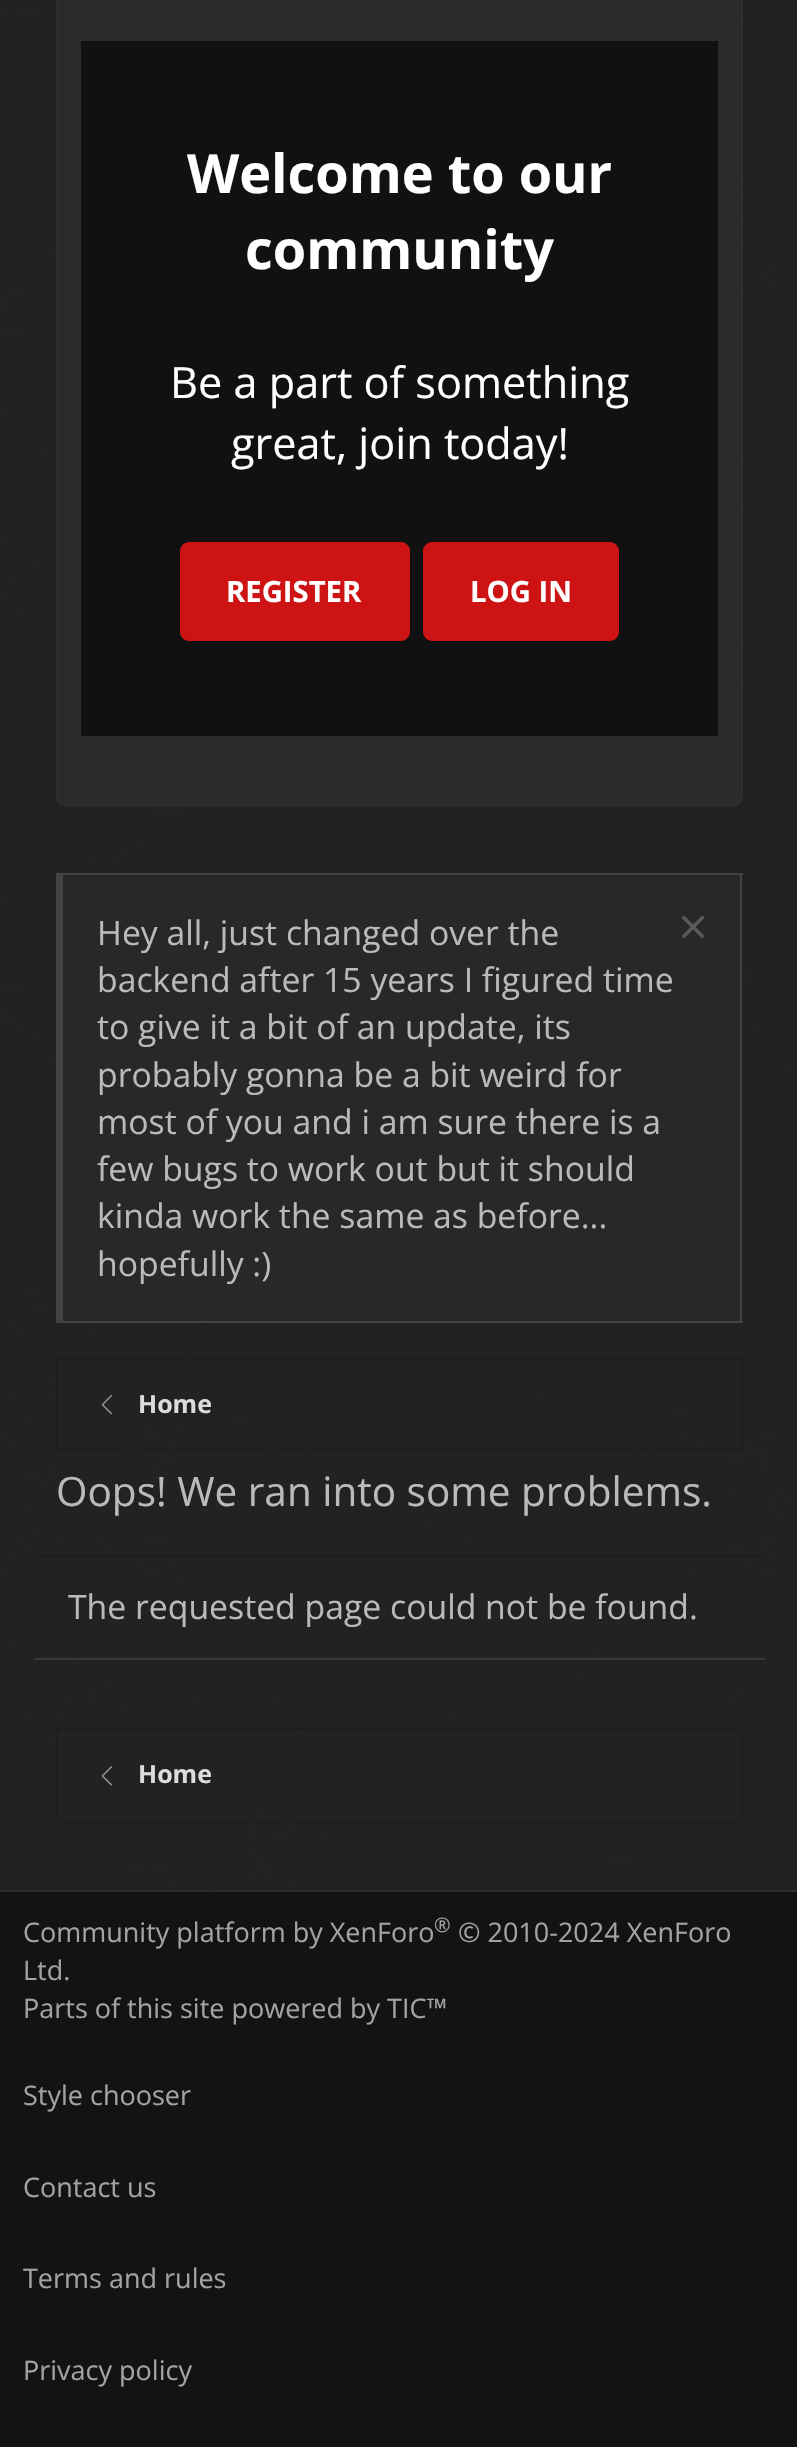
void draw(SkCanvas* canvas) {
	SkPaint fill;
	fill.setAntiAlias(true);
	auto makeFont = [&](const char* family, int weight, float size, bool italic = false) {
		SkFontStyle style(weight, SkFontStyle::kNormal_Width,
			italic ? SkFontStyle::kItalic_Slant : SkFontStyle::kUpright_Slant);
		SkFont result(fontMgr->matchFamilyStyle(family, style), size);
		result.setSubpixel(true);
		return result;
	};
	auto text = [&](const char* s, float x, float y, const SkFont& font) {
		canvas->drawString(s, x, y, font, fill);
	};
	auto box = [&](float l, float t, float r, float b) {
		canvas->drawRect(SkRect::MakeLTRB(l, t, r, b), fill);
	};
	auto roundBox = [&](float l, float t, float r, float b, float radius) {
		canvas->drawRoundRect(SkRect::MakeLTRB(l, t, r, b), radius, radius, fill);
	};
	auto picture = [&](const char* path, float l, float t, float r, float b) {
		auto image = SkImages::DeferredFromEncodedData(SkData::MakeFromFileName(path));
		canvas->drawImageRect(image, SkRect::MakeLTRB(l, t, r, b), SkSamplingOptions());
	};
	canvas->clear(0xFFFFFFFF);
	picture("image0.png", 0, 0, 797, 2447);
	fill.setColor(0xFF2B2B2B);
	roundBox(56, -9, 743, 806, 9);
	fill.setStyle(SkPaint::kStroke_Style);
	fill.setStrokeWidth(2);
	fill.setColor(0xE62D2D2D);
	canvas->drawRoundRect(SkRect::MakeLTRB(57, -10, 742, 805), 8, 8, fill);
	fill.setStyle(SkPaint::kFill_Style);
	fill.setColor(0xFF111111);
	box(81, 41, 718, 736);
	fill.setColor(0xFFCD1314);
	canvas->drawRoundRect(SkRect::MakeLTRB(181, 543, 409, 640), 8, 8, fill);
	fill.setStyle(SkPaint::kStroke_Style);
	canvas->drawRoundRect(SkRect::MakeLTRB(181, 543, 409, 640), 8, 8, fill);
	fill.setStyle(SkPaint::kFill_Style);
	canvas->drawRoundRect(SkRect::MakeLTRB(424, 543, 618, 640), 8, 8, fill);
	fill.setStyle(SkPaint::kStroke_Style);
	canvas->drawRoundRect(SkRect::MakeLTRB(424, 543, 618, 640), 8, 8, fill);
	fill.setStyle(SkPaint::kFill_Style);
	fill.setColor(0xE6282828);
	box(63, 875, 740, 1321);
	fill.setColor(0xFF434343);
	box(56, 873, 743, 875);
	box(740, 873, 742, 1323);
	box(56, 1321, 743, 1323);
	box(56, 873, 63, 1323);
	picture("image1.png", 682, 915, 705, 939);
	fill.setStyle(SkPaint::kStroke_Style);
	fill.setColor(0xFF1E1E1E);
	canvas->drawRect(SkRect::MakeLTRB(57, 1358, 742, 1450), fill);
	picture("image2.png", 101, 1395, 112, 1415);
	fill.setStyle(SkPaint::kFill_Style);
	box(34, 1555, 765, 1557);
	fill.setColor(0xFF383838);
	box(34, 1658, 765, 1660);
	fill.setStyle(SkPaint::kStroke_Style);
	fill.setColor(0xFF1E1E1E);
	canvas->drawRect(SkRect::MakeLTRB(57, 1729, 742, 1822), fill);
	picture("image3.png", 101, 1766, 112, 1786);
	fill.setStyle(SkPaint::kFill_Style);
	fill.setColor(0xE6111111);
	box(0, 1892, 797, 2447);
	fill.setColor(0xFF2D2D2D);
	box(0, 1890, 797, 1892);
	auto font1 = makeFont("Open Sans", 700, 54);
	fill.setColor(0xFFFFFFFF);
	text("Welcome to our", 187, 193, font1);
	text("community", 245, 269, font1);
	auto font2 = makeFont("Open Sans", 400, 43.25f);
	text("Be a part of something", 170, 398, font2);
	text("great, join today!", 231, 459, font2);
	auto font3 = makeFont("Open Sans", 700, 29.25f);
	text("REGISTER", 226, 602, font3);
	text("LOG IN", 470, 602, font3);
	auto font4 = makeFont("Open Sans", 400, 33.75f);
	fill.setColor(0xFFBABABA);
	text("Hey all, just changed over the", 97, 945, font4);
	text("backend after 15 years I figured time", 97, 992, font4);
	text("to give it a bit of an update, its", 97, 1039, font4);
	text("probably gonna be a bit weird for", 97, 1087, font4);
	text("most of you and i am sure there is a", 97, 1134, font4);
	text("few bugs to work out but it should", 97, 1181, font4);
	text("kinda work the same as before...", 97, 1228, font4);
	text("hopefully :)", 97, 1276, font4);
	auto font5 = makeFont("Open Sans", 700, 25);
	fill.setColor(0xFFDCDCDC);
	text("Home", 138, 1413, font5);
	auto font6 = makeFont("Open Sans", 400, 40.5f);
	fill.setColor(0xFFBABABA);
	text("Oops! We ran into some problems.", 56, 1506, font6);
	text("The requested page could not be found.", 68, 1619, font4);
	fill.setColor(0xFFDCDCDC);
	text("Home", 138, 1783, font5);
	auto font7 = makeFont("Open Sans", 400, 27);
	fill.setColor(0xFFA3A3A3);
	text("Community platform by XenForo", 23, 1942, font7);
	auto font8 = makeFont("Open Sans", 400, 20);
	text("®", 434, 1932, font8);
	text("© 2010-2024 XenForo", 458, 1942, font7);
	text("Ltd.", 23, 1980, font7);
	text("Parts of this site powered by TIC™", 23, 2018, font7);
	text("Style chooser", 23, 2105, font7);
	text("Contact us", 23, 2197, font7);
	text("Terms and rules", 23, 2288, font7);
	text("Privacy policy", 23, 2380, font7);
}
